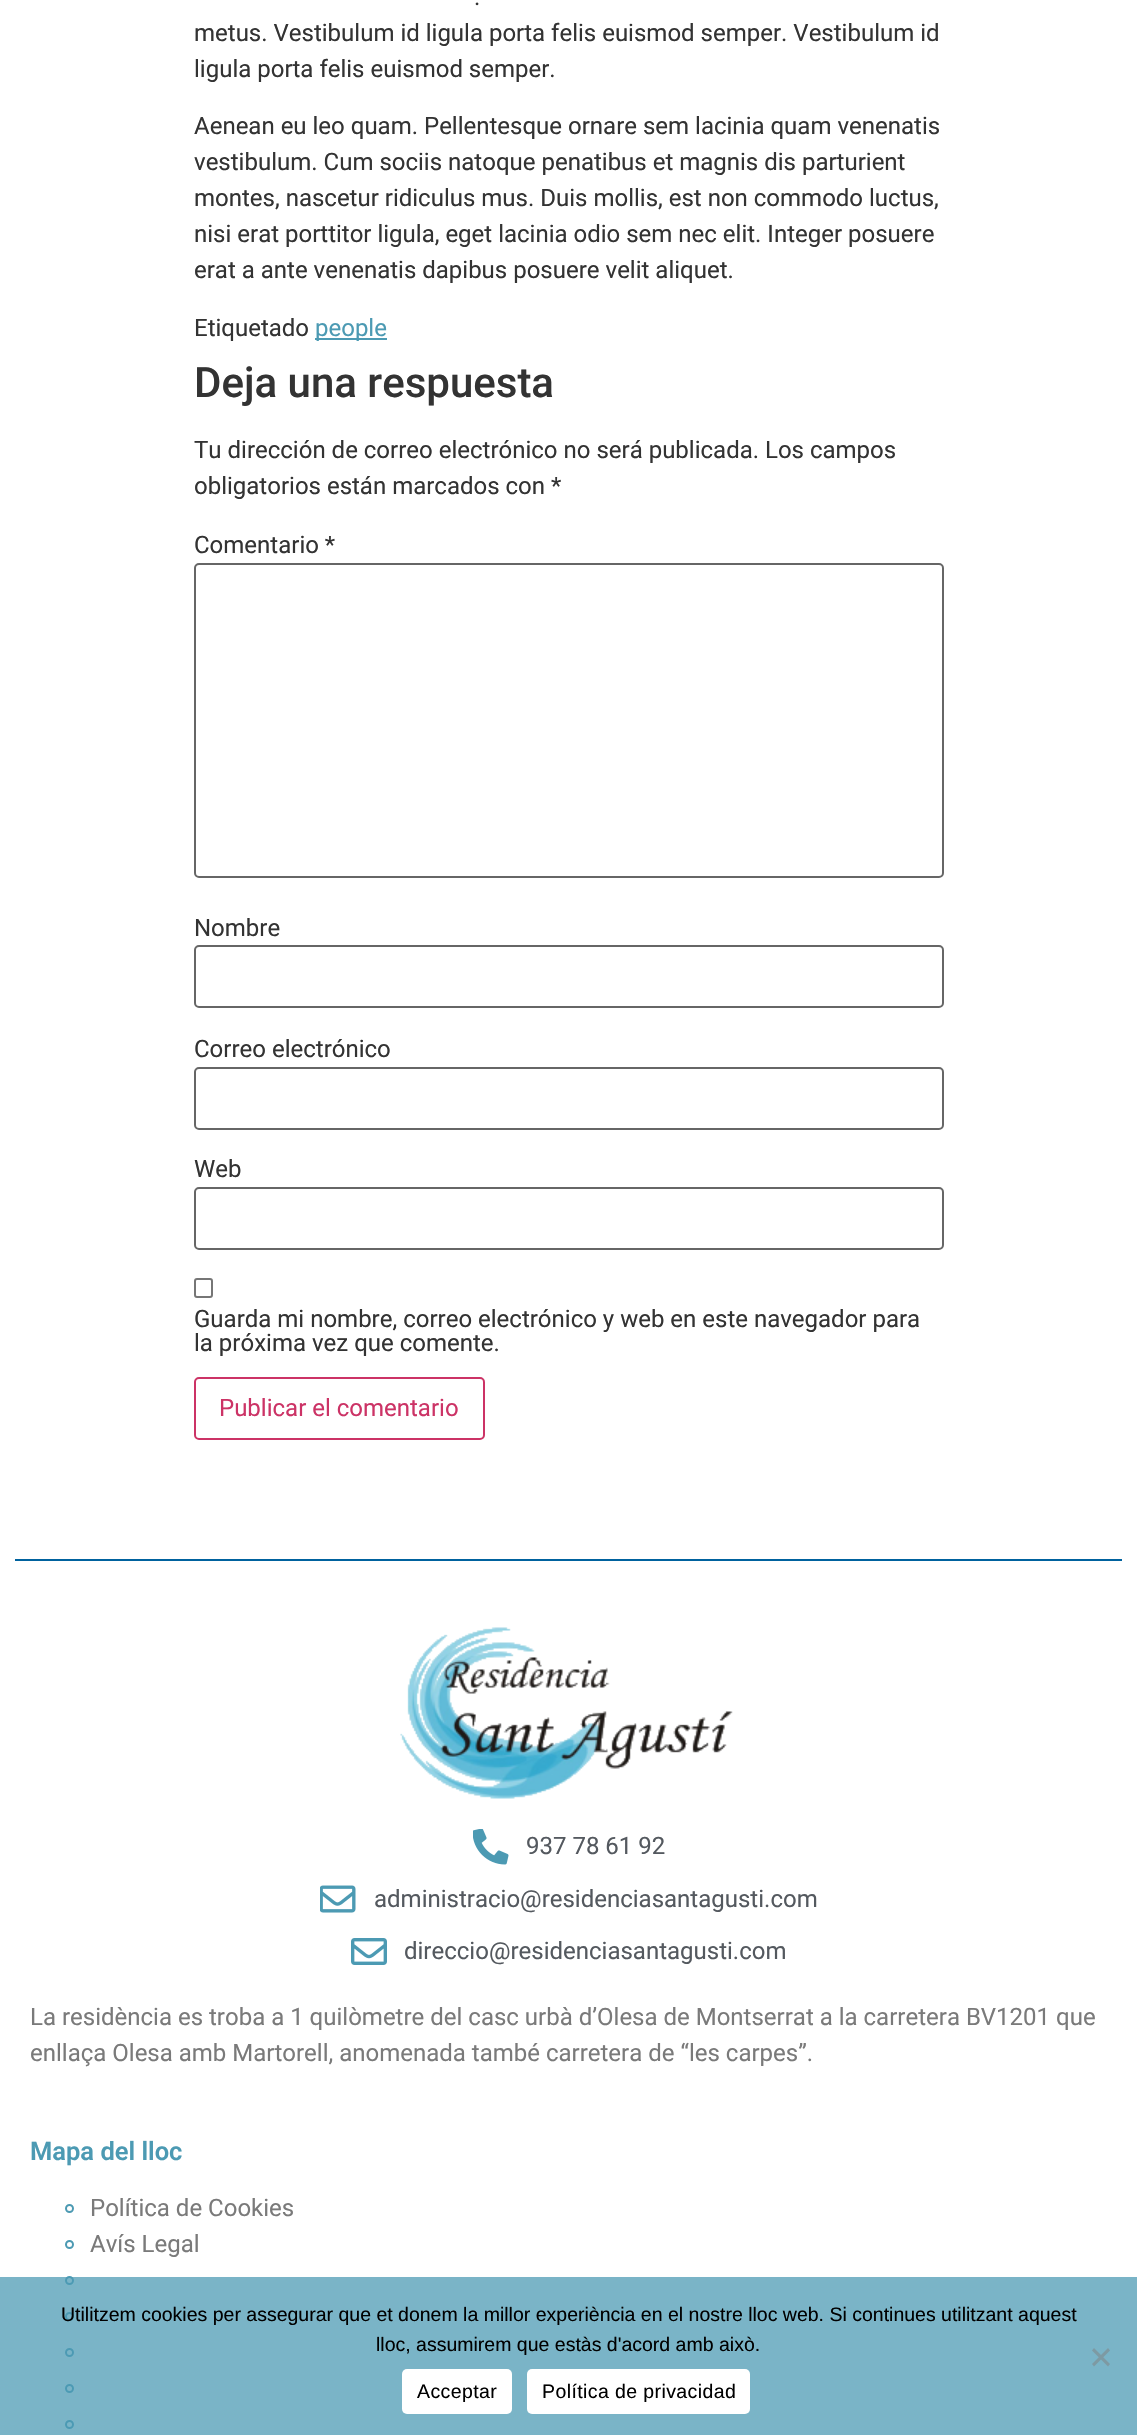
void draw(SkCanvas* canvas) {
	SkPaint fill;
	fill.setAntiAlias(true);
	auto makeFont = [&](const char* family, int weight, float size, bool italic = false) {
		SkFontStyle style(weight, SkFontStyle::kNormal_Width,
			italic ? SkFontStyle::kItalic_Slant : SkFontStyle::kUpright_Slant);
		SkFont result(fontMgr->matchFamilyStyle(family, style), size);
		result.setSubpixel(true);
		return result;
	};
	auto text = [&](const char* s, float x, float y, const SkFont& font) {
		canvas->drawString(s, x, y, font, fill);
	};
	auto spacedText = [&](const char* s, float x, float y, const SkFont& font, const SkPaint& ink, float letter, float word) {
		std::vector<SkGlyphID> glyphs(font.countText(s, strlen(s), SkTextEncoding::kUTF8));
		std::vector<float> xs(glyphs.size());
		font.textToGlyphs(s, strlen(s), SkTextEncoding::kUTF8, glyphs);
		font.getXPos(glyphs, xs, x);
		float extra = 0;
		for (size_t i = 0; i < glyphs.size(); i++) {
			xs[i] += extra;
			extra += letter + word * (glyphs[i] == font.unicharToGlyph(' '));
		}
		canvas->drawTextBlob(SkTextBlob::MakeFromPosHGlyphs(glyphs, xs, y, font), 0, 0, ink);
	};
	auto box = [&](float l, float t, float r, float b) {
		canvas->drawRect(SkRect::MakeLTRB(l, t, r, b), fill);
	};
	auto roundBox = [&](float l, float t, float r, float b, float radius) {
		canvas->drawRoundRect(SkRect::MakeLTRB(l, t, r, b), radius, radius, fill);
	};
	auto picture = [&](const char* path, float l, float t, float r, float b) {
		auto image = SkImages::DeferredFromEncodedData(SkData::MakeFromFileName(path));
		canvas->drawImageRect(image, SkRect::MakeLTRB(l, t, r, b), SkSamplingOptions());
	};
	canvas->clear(0xFFFFFFFF);
	fill.setColor(0xFF4C9AB3);
	box(315, 338, 387, 340);
	fill.setStyle(SkPaint::kStroke_Style);
	fill.setStrokeWidth(2);
	fill.setColor(0xFF666666);
	canvas->drawRoundRect(SkRect::MakeLTRB(195, 564, 943, 877), 4, 4, fill);
	canvas->drawRoundRect(SkRect::MakeLTRB(195, 946, 943, 1007), 4, 4, fill);
	canvas->drawRoundRect(SkRect::MakeLTRB(195, 1068, 943, 1129), 4, 4, fill);
	canvas->drawRoundRect(SkRect::MakeLTRB(195, 1188, 943, 1249), 4, 4, fill);
	fill.setColor(0xFF767676);
	canvas->drawRoundRect(SkRect::MakeLTRB(195, 1279, 212, 1297), 2, 2, fill);
	fill.setColor(0xFFCC3366);
	canvas->drawRoundRect(SkRect::MakeLTRB(195, 1378, 484, 1439), 4, 4, fill);
	fill.setStyle(SkPaint::kFill_Style);
	fill.setColor(0xFF00629E);
	box(15, 1559, 1122, 1561);
	picture("image0.png", 400, 1627, 733, 1799);
	picture("image1.png", 473, 1829, 509, 1865);
	picture("image2.png", 320, 1885, 356, 1913);
	picture("image3.png", 351, 1938, 387, 1965);
	fill.setStyle(SkPaint::kStroke_Style);
	fill.setColor(0xFF4C9AB3);
	canvas->drawCircle(69.5f, 2208.5f, 3.5f, fill);
	canvas->drawCircle(69.5f, 2244.5f, 3.5f, fill);
	canvas->drawCircle(69.5f, 2280.5f, 3.5f, fill);
	canvas->drawCircle(69.5f, 2316.5f, 3.5f, fill);
	canvas->drawCircle(69.5f, 2352.5f, 3.5f, fill);
	canvas->drawCircle(69.5f, 2388.5f, 3.5f, fill);
	canvas->drawCircle(69.5f, 2424.5f, 3.5f, fill);
	fill.setStyle(SkPaint::kFill_Style);
	fill.setColor(0xBD4C9AB3);
	box(0, 2277, 1137, 2435);
	fill.setColor(0xFF7D9AA3);
	canvas->drawPath(SkPathBuilder().moveTo(1108, 2348).lineTo(1110, 2350.5f).lineTo(1094, 2366.5f).lineTo(1092, 2364).close().detach(), fill);
	canvas->drawPath(SkPathBuilder().moveTo(1092, 2350.5f).lineTo(1094, 2348).lineTo(1110, 2364).lineTo(1108, 2366.5f).close().detach(), fill);
	fill.setColor(0xFFFFFFFF);
	roundBox(402, 2369, 512, 2414, 5);
	roundBox(527, 2369, 750, 2414, 5);
	auto font1 = makeFont("Roboto", 400, 24);
	fill.setColor(0xFF333333);
	text(".", 474, 5, font1);
	text("metus. Vestibulum id ligula porta felis euismod semper. Vestibulum id", 194, 41, font1);
	text("ligula porta felis euismod semper.", 194, 77, font1);
	text("Aenean eu leo quam. Pellentesque ornare sem lacinia quam venenatis", 194, 134, font1);
	text("vestibulum. Cum sociis natoque penatibus et magnis dis parturient", 194, 170, font1);
	text("montes, nascetur ridiculus mus. Duis mollis, est non commodo luctus,", 194, 206, font1);
	text("nisi erat porttitor ligula, eget lacinia odio sem nec elit. Integer posuere", 194, 242, font1);
	text("erat a ante venenatis dapibus posuere velit aliquet.", 194, 278, font1);
	text("Etiquetado", 194, 336, font1);
	fill.setColor(0xFF4C9AB3);
	text("people", 315, 336, font1);
	auto font2 = makeFont("Roboto", 500, 42);
	fill.setColor(0xFF333333);
	text("Deja una respuesta", 194, 397, font2);
	text("Tu dirección de correo electrónico no será publicada. Los campos", 194, 458, font1);
	text("obligatorios están marcados con *", 194, 494, font1);
	text("Comentario *", 194, 553, font1);
	text("Nombre", 194, 936, font1);
	text("Correo electrónico", 194, 1057, font1);
	text("Web", 194, 1177, font1);
	text("Guarda mi nombre, correo electrónico y web en este navegador para", 194, 1327, font1);
	text("la próxima vez que comente.", 194, 1351, font1);
	fill.setColor(0xFFCC3366);
	text("Publicar el comentario", 219, 1416, font1);
	fill.setColor(0xFF54595F);
	text("937 78 61 92", 526, 1854, font1);
	text("administracio@residenciasantagusti.com", 374, 1907, font1);
	text("direccio@residenciasantagusti.com", 404, 1959, font1);
	fill.setColor(0xFF7A7A7A);
	text("La residència es troba a 1 quilòmetre del casc urbà d’Olesa de Montserrat a la carretera BV1201 que", 30, 2025, font1);
	text("enllaça Olesa amb Martorell, anomenada també carretera de “les carpes”.", 30, 2061, font1);
	auto font3 = makeFont("Roboto", 600, 25.5f);
	fill.setColor(0xFF4C9AB3);
	text("Mapa del lloc", 30, 2160, font3);
	fill.setColor(0xFF7A7A7A);
	text("Política de Cookies", 90, 2216, font1);
	text("Avís Legal", 90, 2252, font1);
	auto font4 = makeFont("Liberation Sans", 400, 19.5f);
	fill.setColor(0xFF000000);
	text("Utilitzem cookies per assegurar que et donem la millor experiència en el nostre lloc web. Si continues utilitzant aquest", 61, 2321, font4);
	text("lloc, assumirem que estàs d'acord amb això.", 376, 2351, font4);
	spacedText("Acceptar", 417, 2398, font4, fill, 0.4f, 0);
	spacedText("Política de privacidad", 542, 2398, font4, fill, 0.4f, 0);
}
